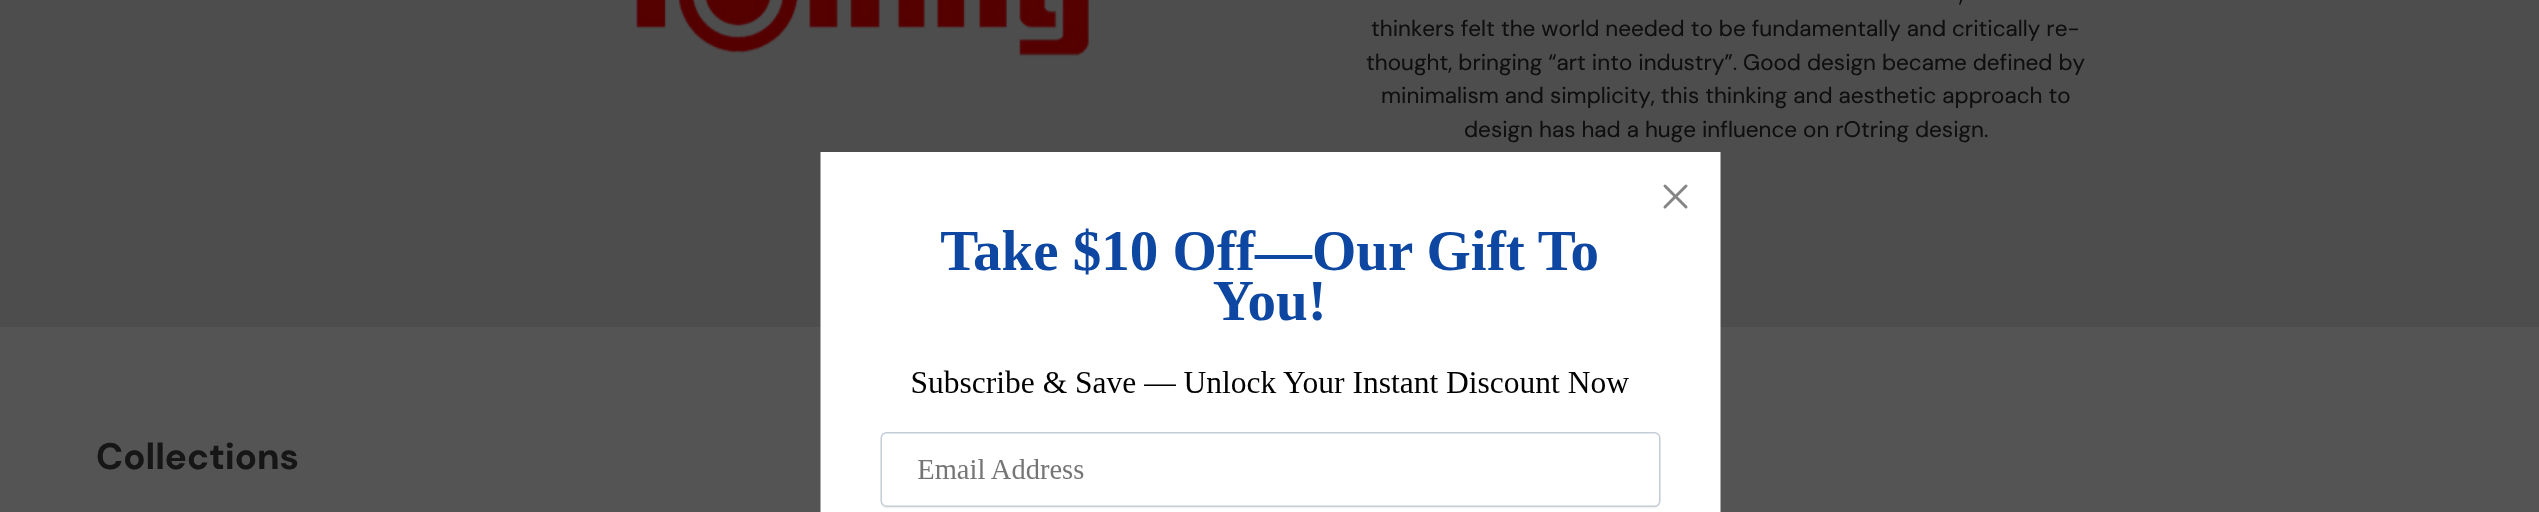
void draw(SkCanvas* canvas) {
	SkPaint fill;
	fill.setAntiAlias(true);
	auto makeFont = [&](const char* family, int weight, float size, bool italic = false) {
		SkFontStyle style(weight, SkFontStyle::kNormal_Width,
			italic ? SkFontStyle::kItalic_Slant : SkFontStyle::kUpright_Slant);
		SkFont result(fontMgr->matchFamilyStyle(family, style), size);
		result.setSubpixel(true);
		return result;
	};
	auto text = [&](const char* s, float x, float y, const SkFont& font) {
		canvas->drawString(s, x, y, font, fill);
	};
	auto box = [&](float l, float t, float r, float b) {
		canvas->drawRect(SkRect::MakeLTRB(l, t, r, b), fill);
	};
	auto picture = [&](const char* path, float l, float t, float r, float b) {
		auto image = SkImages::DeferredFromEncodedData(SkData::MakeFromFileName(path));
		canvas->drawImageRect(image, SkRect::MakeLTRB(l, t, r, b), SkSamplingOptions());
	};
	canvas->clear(0xFFFFFFFF);
	fill.setColor(0xFFE9E9E9);
	box(0, 0, 2539, 327);
	picture("image1.png", 636, 0, 1089, 57);
	auto font1 = makeFont("DM Sans", 400, 22.5f);
	fill.setColor(0xFF2A2B2A);
	text(",", 1959, 2, font1);
	text("thinkers felt the world needed to be fundamentally and critically re-", 1371, 36, font1);
	text("thought, bringing “art into industry”. Good design became defined by", 1366, 70, font1);
	text("minimalism and simplicity, this thinking and aesthetic approach to", 1381, 103, font1);
	text("design has had a huge influence on rOtring design.", 1464, 137, font1);
	auto font2 = makeFont("DM Sans", 700, 36.75f);
	fill.setColor(0xFF414141);
	text("Collections", 96, 469, font2);
	picture("image0.png", 0, 0, 2539, 512);
}
